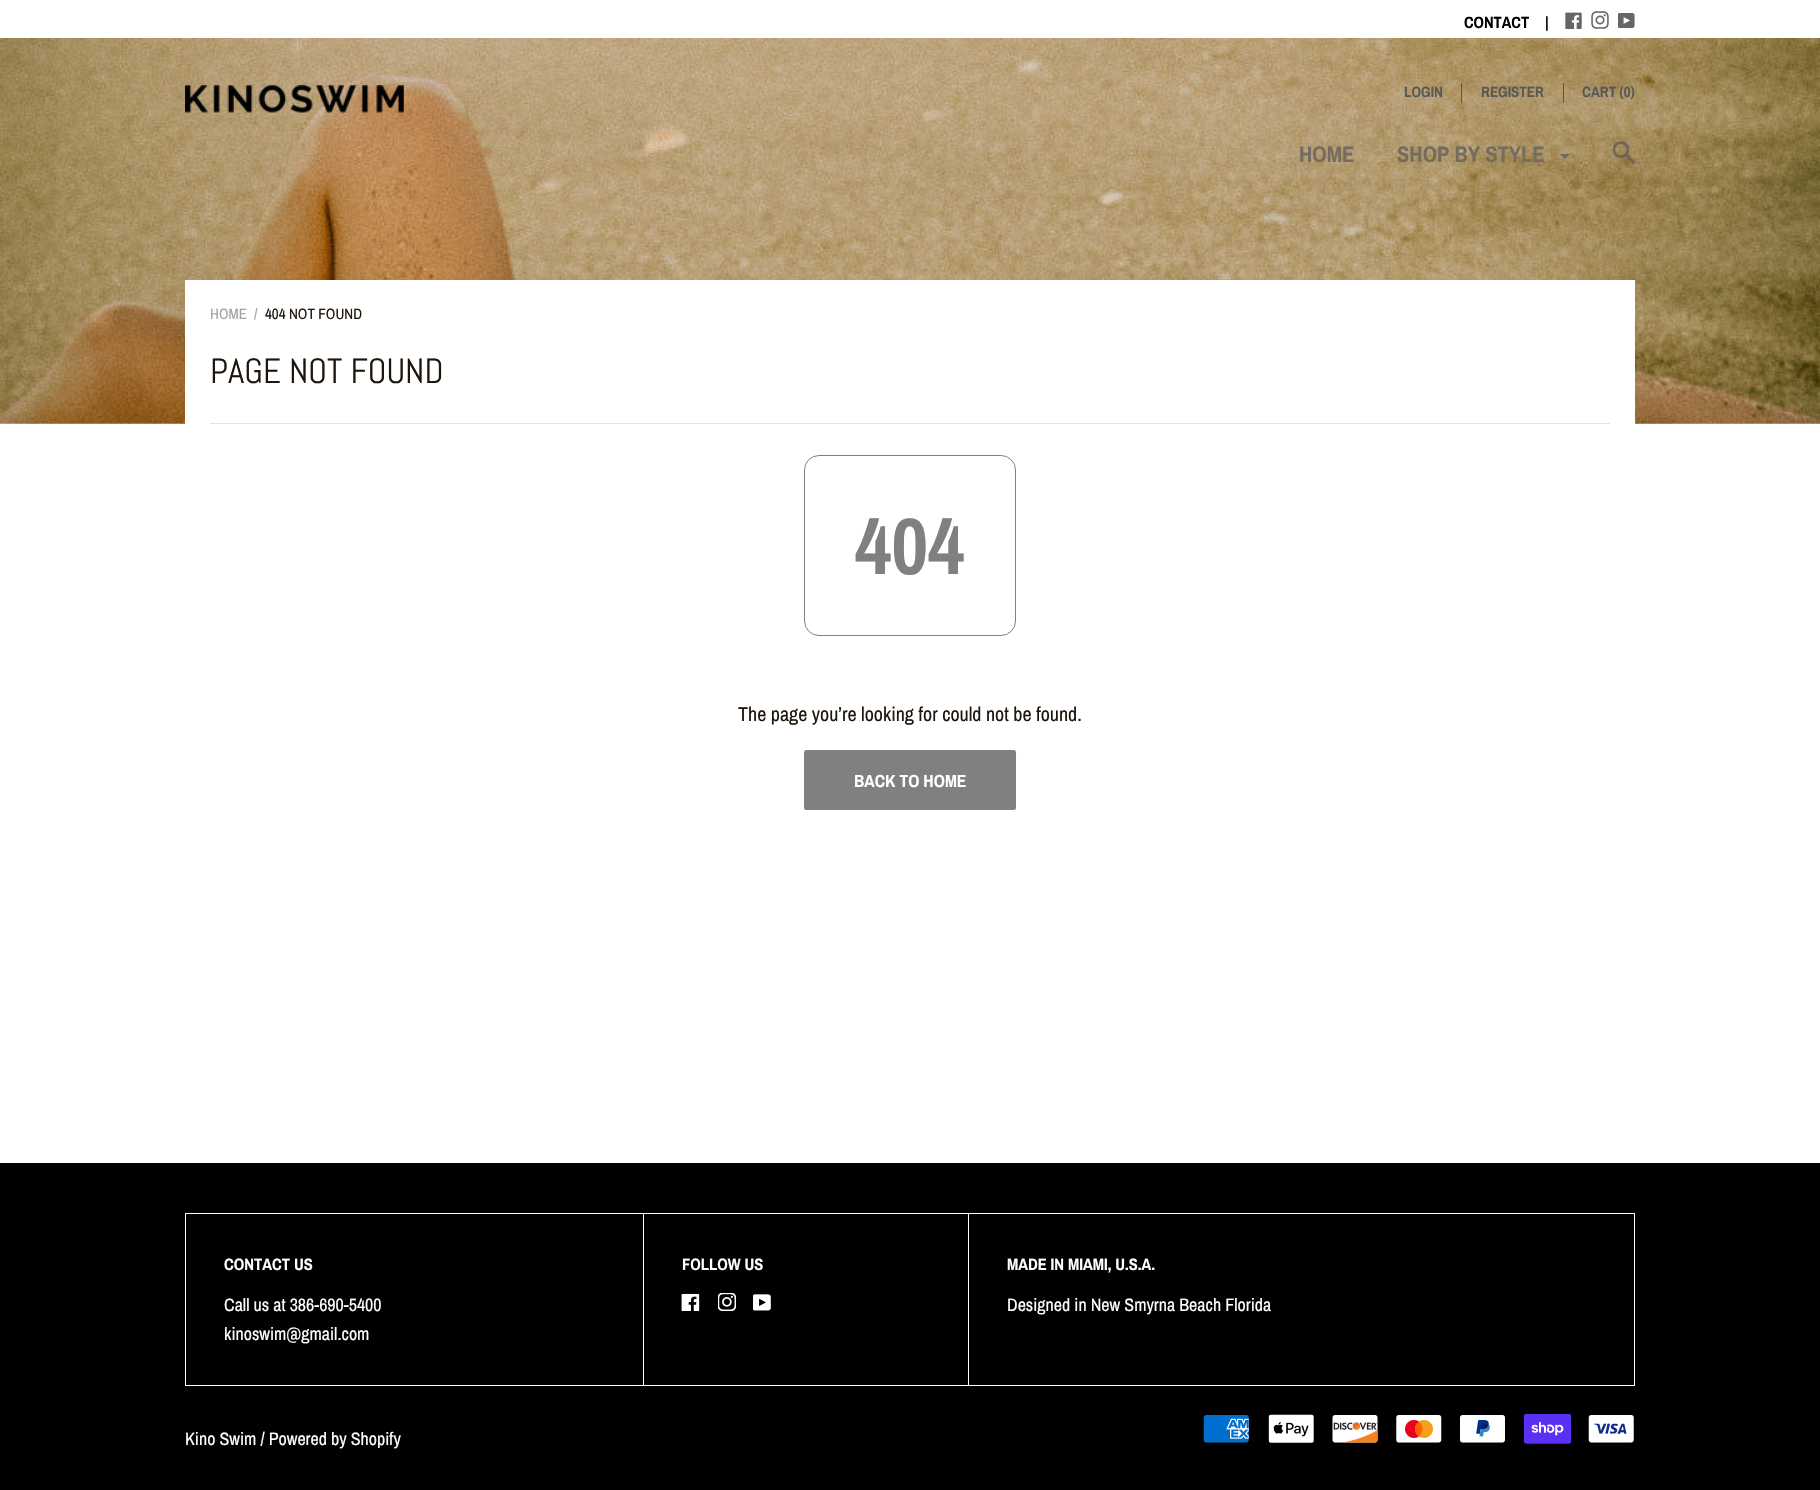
void draw(SkCanvas* canvas) {
	SkPaint fill;
	fill.setAntiAlias(true);
	auto makeFont = [&](const char* family, int weight, float size, bool italic = false) {
		SkFontStyle style(weight, SkFontStyle::kNormal_Width,
			italic ? SkFontStyle::kItalic_Slant : SkFontStyle::kUpright_Slant);
		SkFont result(fontMgr->matchFamilyStyle(family, style), size);
		result.setSubpixel(true);
		return result;
	};
	auto text = [&](const char* s, float x, float y, const SkFont& font) {
		canvas->drawString(s, x, y, font, fill);
	};
	auto box = [&](float l, float t, float r, float b) {
		canvas->drawRect(SkRect::MakeLTRB(l, t, r, b), fill);
	};
	auto roundBox = [&](float l, float t, float r, float b, float radius) {
		canvas->drawRoundRect(SkRect::MakeLTRB(l, t, r, b), radius, radius, fill);
	};
	auto picture = [&](const char* path, float l, float t, float r, float b) {
		auto image = SkImages::DeferredFromEncodedData(SkData::MakeFromFileName(path));
		canvas->drawImageRect(image, SkRect::MakeLTRB(l, t, r, b), SkSamplingOptions());
	};
	canvas->clear(0xFFFFFFFF);
	picture("image0.png", 0, 38, 1820, 424);
	picture("image1.png", 1565, 12, 1582, 29);
	picture("image2.png", 1591, 11, 1609, 29);
	picture("image3.png", 1618, 13, 1635, 28);
	picture("image4.png", 185, 85, 404, 113);
	fill.setColor(0xFF585858);
	box(1461, 83, 1462, 103);
	box(1563, 83, 1564, 103);
	fill.setColor(0xB3585858);
	canvas->drawPath(SkPathBuilder().moveTo(1560, 154).lineTo(1570, 154).lineTo(1565, 159).close().detach(), fill);
	picture("image5.png", 1613, 141, 1635, 164);
	fill.setColor(0xFFFFFFFF);
	box(185, 280, 1635, 424);
	fill.setColor(0xFFE4E4E4);
	box(210, 423, 1610, 424);
	fill.setStyle(SkPaint::kStroke_Style);
	fill.setStrokeWidth(1);
	fill.setColor(0xFF818080);
	canvas->drawRoundRect(SkRect::MakeLTRB(804.5f, 455.5f, 1015.5f, 635.5f), 14.5f, 14.5f, fill);
	fill.setStyle(SkPaint::kFill_Style);
	roundBox(804, 750, 1016, 810, 2.5f);
	fill.setColor(0xFF000000);
	box(0, 1163, 1820, 1490);
	fill.setStyle(SkPaint::kStroke_Style);
	fill.setColor(0xFFFFFFFF);
	canvas->drawRect(SkRect::MakeLTRB(185.5f, 1213.5f, 1634.5f, 1385.5f), fill);
	fill.setStyle(SkPaint::kFill_Style);
	box(643, 1214, 644, 1385);
	box(968, 1214, 969, 1385);
	picture("image6.png", 681, 1293, 700, 1311);
	picture("image7.png", 718, 1293, 736, 1311);
	picture("image8.png", 753, 1294, 771, 1311);
	picture("image9.png", 1203, 1415, 1249, 1443);
	picture("image10.png", 1268, 1414, 1314, 1443);
	picture("image11.png", 1332, 1415, 1378, 1443);
	picture("image12.png", 1396, 1415, 1442, 1443);
	picture("image13.png", 1460, 1415, 1505, 1443);
	picture("image14.png", 1524, 1414, 1571, 1444);
	picture("image15.png", 1588, 1415, 1634, 1443);
	auto font1 = makeFont("Archivo Narrow", 700, 16.25f);
	fill.setColor(0xFF000000);
	text("CONTACT", 1464, 28, font1);
	text("|", 1545, 28, font1);
	auto font2 = makeFont("Archivo Narrow", 700, 15);
	fill.setColor(0xFF585858);
	text("LOGIN", 1404, 97, font2);
	text("REGISTER", 1481, 97, font2);
	text("CART (0)", 1582, 97, font2);
	auto font3 = makeFont("Archivo Narrow", 700, 22.5f);
	fill.setColor(0xFF736C5F);
	text("HOME", 1299, 162, font3);
	text("SHOP BY STYLE", 1397, 162, font3);
	auto font4 = makeFont("Archivo Narrow", 400, 15);
	fill.setColor(0xFFA5A19E);
	text("HOME", 210, 319, font4);
	text("/", 254, 319, font4);
	fill.setColor(0xFF1E150D);
	text("404 NOT FOUND", 265, 319, font4);
	auto font5 = makeFont("Abel", 400, 35);
	text("PAGE NOT FOUND", 210, 383, font5);
	auto font6 = makeFont("Archivo Narrow", 700, 80);
	fill.setColor(0xFF818080);
	text("404", 855, 574, font6);
	auto font7 = makeFont("Archivo Narrow", 400, 20);
	fill.setColor(0xFF1E150D);
	text("The page you’re looking for could not be found.", 738, 721, font7);
	auto font8 = makeFont("Archivo Narrow", 700, 17.5f);
	fill.setColor(0xFFFFFFFF);
	text("BACK TO HOME", 854, 787, font8);
	auto font9 = makeFont("Archivo Narrow", 700, 16.5f);
	text("CONTACT US", 224, 1270, font9);
	auto font10 = makeFont("Archivo Narrow", 400, 18);
	text("Call us at 386-690-5400", 224, 1311, font10);
	text("kinoswim@gmail.com", 224, 1340, font10);
	text("FOLLOW US", 682, 1270, font9);
	text("MADE IN MIAMI, U.S.A.", 1007, 1270, font9);
	text("Designed in New Smyrna Beach Florida", 1007, 1311, font10);
	text("Kino Swim / Powered by Shopify", 185, 1445, font10);
}
